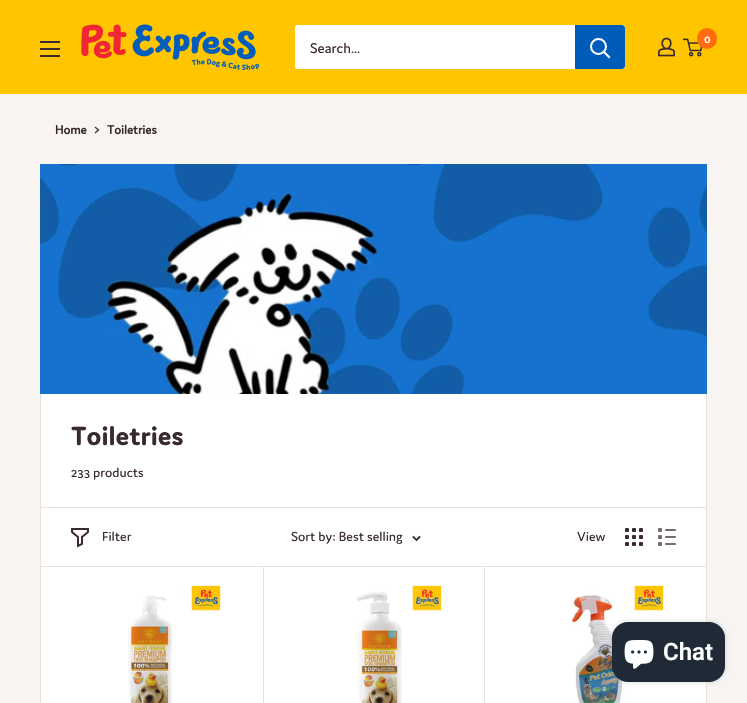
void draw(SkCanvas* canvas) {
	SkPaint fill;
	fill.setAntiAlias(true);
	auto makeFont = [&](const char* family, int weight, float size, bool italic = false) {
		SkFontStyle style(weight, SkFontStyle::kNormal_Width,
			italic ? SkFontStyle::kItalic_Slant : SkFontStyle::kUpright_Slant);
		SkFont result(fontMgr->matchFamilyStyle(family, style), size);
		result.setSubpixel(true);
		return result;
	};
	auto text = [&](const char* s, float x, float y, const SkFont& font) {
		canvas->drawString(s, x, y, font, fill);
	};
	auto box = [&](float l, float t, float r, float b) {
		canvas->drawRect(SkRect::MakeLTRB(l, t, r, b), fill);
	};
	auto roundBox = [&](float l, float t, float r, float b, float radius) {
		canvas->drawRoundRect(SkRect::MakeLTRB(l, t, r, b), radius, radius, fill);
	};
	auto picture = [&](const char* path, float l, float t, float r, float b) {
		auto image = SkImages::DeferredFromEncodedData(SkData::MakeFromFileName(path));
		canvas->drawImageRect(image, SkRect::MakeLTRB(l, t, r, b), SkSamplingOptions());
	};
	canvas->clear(0xFFF7F4F2);
	fill.setColor(0xFFFFC600);
	box(0, 0, 747, 94);
	picture("image0.png", 81, 24, 260, 70);
	picture("image1.png", 658, 37, 675, 57);
	picture("image2.png", 683, 38, 703, 57);
	fill.setColor(0xFFFF6C0D);
	roundBox(697, 28, 717, 49, 10);
	picture("image3.png", 40, 41, 60, 57);
	fill.setColor(0xFFFFFFFF);
	roundBox(295, 25, 625, 69, 3);
	fill.setColor(0xFF005CB9);
	canvas->drawPath(SkPathBuilder().moveTo(575, 25).lineTo(622, 25).cubicTo(623.5f, 25, 625, 26.5f, 625, 28).lineTo(625, 66).cubicTo(625, 67.5f, 623.5f, 69, 622, 69).lineTo(575, 69).close().detach(), fill);
	fill.setStyle(SkPaint::kStroke_Style);
	fill.setStrokeWidth(2);
	fill.setStrokeCap(SkPaint::kSquare_Cap);
	fill.setColor(0xFFFFFFFF);
	canvas->drawPath(SkPathBuilder().moveTo(609, 57).lineTo(604, 52).detach(), fill);
	fill.setStrokeCap(SkPaint::kButt_Cap);
	canvas->drawCircle(598.5f, 46.5f, 7.5f, fill);
	fill.setStrokeWidth(1.3f);
	fill.setStrokeCap(SkPaint::kSquare_Cap);
	fill.setColor(0xFF3A2A2F);
	canvas->drawPath(SkPathBuilder().moveTo(95.5f, 127.5f).lineTo(98.5f, 130).lineTo(95.5f, 132.5f).detach(), fill);
	fill.setStyle(SkPaint::kFill_Style);
	fill.setColor(0xFF2B75BE);
	box(40, 164, 707, 167);
	fill.setColor(0xFFFFFFFF);
	canvas->drawRect(SkRect::MakeLTRB(40.5f, 393.5f, 706.5f, 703.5f), fill);
	fill.setStyle(SkPaint::kStroke_Style);
	fill.setStrokeWidth(1);
	fill.setStrokeCap(SkPaint::kButt_Cap);
	fill.setColor(0xFFE7E2DE);
	canvas->drawRect(SkRect::MakeLTRB(40.5f, 393.5f, 706.5f, 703.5f), fill);
	picture("image4.png", 40, 164, 707, 394);
	fill.setStyle(SkPaint::kFill_Style);
	box(41, 507, 706, 508);
	box(263, 566, 264, 703);
	box(484, 566, 485, 703);
	box(41, 566, 706, 567);
	fill.setStyle(SkPaint::kStroke_Style);
	fill.setStrokeWidth(2);
	fill.setStrokeCap(SkPaint::kSquare_Cap);
	fill.setColor(0xFF3A2A2F);
	canvas->drawPath(SkPathBuilder().moveTo(88, 532).lineTo(82, 537).lineTo(82, 544).lineTo(78, 546).lineTo(78, 537).lineTo(72, 532).lineTo(72, 529).lineTo(88, 529).close().detach(), fill);
	fill.setStrokeWidth(1.9f);
	canvas->drawPath(SkPathBuilder().moveTo(419.5f, 537).lineTo(416.5f, 540).lineTo(413.5f, 537).detach(), fill);
	picture("image5.png", 625, 528, 643, 546);
	picture("image6.png", 658, 528, 676, 546);
	picture("image7.png", 128, 585, 221, 703);
	picture("image8.png", 356, 585, 442, 703);
	picture("image9.png", 571, 585, 664, 703);
	fill.setStyle(SkPaint::kFill_Style);
	fill.setColor(0x26000000);
	fill.setMaskFilter(SkMaskFilter::MakeBlur(kNormal_SkBlurStyle, 2.5f));
	canvas->drawRoundRect(SkRect::MakeLTRB(612, 622, 725, 682), 16, 16, fill);
	fill.setMaskFilter(nullptr);
	fill.setColor(0xFF202A36);
	roundBox(612, 622, 725, 682, 16);
	picture("image10.png", 624, 640, 654, 669);
	auto font1 = makeFont("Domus", 700, 12);
	fill.setColor(0xFFFFFFFF);
	text("0", 704, 43, font1);
	auto font2 = makeFont("Domus", 400, 15);
	fill.setColor(0xFF3A2A2F);
	text("Search...", 310, 53, font2);
	auto font3 = makeFont("Domus", 700, 13);
	text("Home", 55, 134, font3);
	text("Toiletries", 107, 134, font3);
	auto font4 = makeFont("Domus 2", 700, 28);
	text("Toiletries", 71, 445, font4);
	auto font5 = makeFont("Domus", 400, 14);
	text("233 products", 71, 477, font5);
	text("Filter", 102, 541, font5);
	text("Sort by: Best selling", 291, 541, font5);
	text("View", 577, 541, font5);
	auto font6 = makeFont("Roboto", 600, 24);
	fill.setColor(0xFFFFFFFF);
	text("Chat", 663, 660, font6);
}
